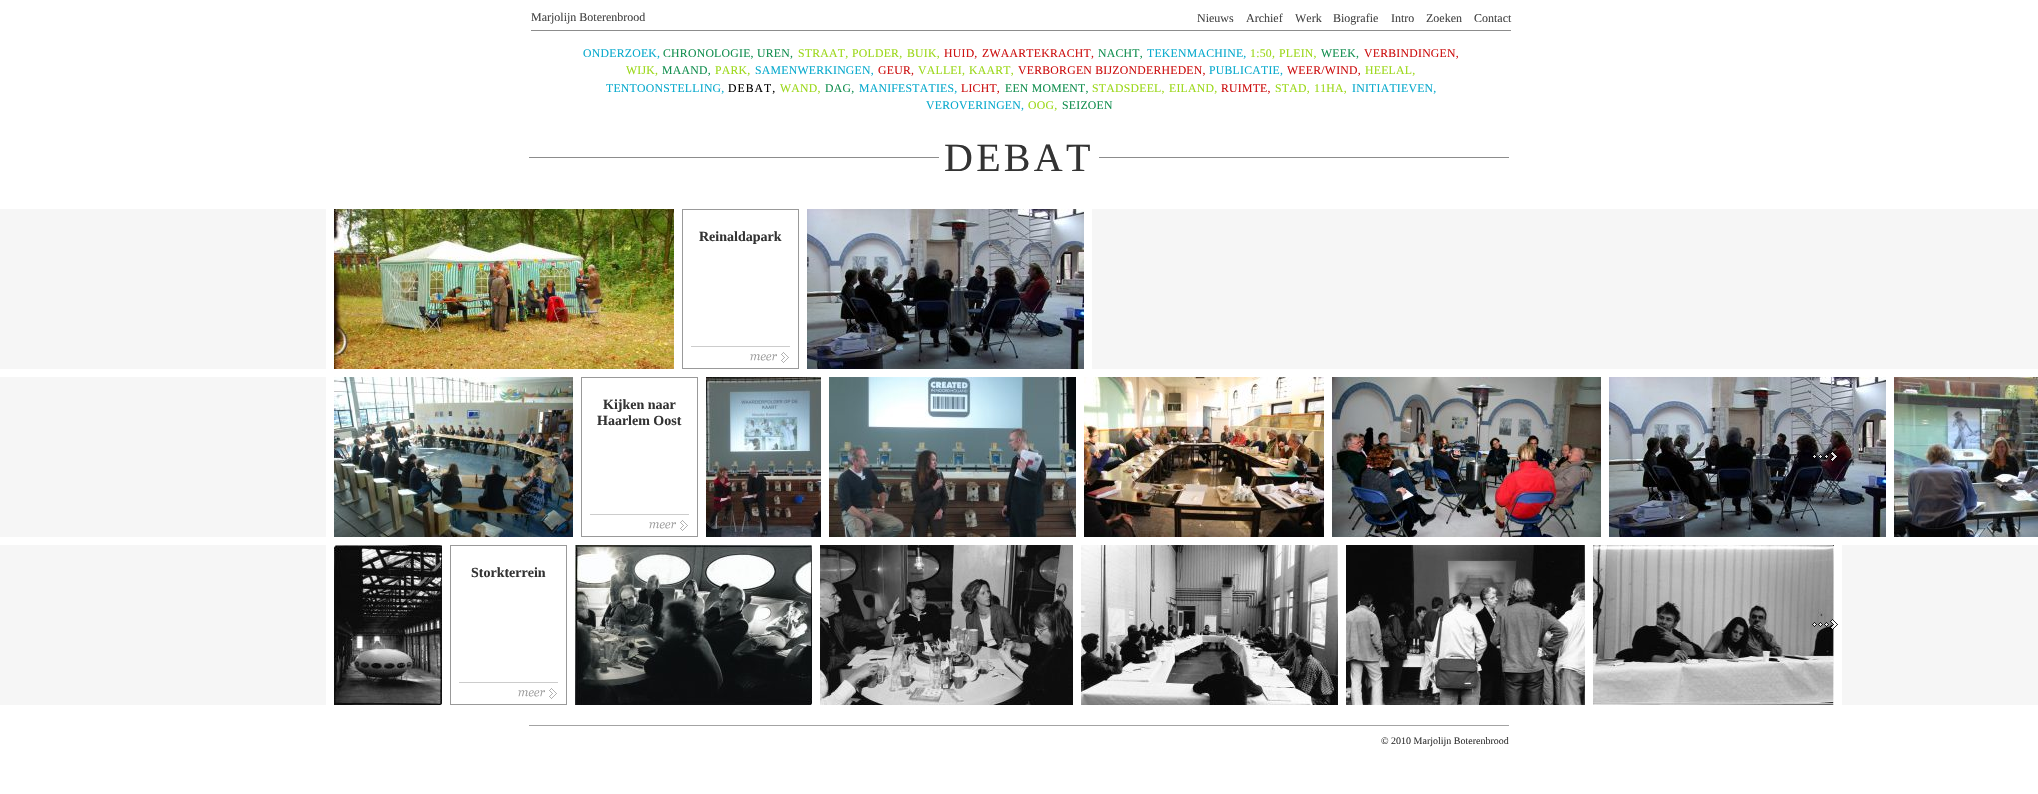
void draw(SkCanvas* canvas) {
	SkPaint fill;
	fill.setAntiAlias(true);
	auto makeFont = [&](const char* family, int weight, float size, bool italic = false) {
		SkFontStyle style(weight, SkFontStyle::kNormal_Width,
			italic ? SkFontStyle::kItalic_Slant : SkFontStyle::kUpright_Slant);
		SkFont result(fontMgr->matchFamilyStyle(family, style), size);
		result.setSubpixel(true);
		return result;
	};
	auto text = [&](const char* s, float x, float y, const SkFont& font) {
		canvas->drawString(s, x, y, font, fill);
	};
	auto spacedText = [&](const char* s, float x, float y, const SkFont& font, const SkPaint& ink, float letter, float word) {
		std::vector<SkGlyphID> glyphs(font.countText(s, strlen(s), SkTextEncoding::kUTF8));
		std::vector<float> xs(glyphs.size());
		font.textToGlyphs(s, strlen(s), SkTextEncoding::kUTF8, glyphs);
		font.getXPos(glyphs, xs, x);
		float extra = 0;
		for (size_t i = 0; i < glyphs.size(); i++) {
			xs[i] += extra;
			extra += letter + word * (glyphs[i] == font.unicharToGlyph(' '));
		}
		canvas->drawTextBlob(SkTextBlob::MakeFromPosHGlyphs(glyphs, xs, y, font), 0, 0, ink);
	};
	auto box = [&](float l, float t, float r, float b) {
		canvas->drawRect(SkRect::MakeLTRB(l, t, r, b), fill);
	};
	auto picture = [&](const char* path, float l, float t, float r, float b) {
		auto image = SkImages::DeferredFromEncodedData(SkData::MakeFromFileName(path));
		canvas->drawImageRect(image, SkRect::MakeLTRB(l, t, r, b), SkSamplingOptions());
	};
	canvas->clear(0xFFFFFFFF);
	fill.setColor(0xFF8C8C8C);
	box(531, 30, 1511, 31);
	box(529, 157, 1509, 158);
	fill.setColor(0xFFFFFFFF);
	box(939, 157, 1099, 158);
	fill.setColor(0xFFF6F6F6);
	box(1092, 209, 2038, 369);
	box(0, 209, 326, 369);
	picture("image0.png", 334, 209, 674, 369);
	fill.setStyle(SkPaint::kStroke_Style);
	fill.setStrokeWidth(1);
	fill.setColor(0xFF999999);
	canvas->drawRect(SkRect::MakeLTRB(682.5f, 209.5f, 798.5f, 368.5f), fill);
	picture("image1.png", 691, 346, 790, 363);
	picture("image2.png", 807, 209, 1084, 369);
	fill.setStyle(SkPaint::kFill_Style);
	fill.setColor(0xFFF6F6F6);
	box(0, 377, 326, 537);
	picture("image3.png", 334, 377, 573, 537);
	fill.setStyle(SkPaint::kStroke_Style);
	fill.setColor(0xFF999999);
	canvas->drawRect(SkRect::MakeLTRB(581.5f, 377.5f, 697.5f, 536.5f), fill);
	picture("image1.png", 590, 514, 689, 531);
	picture("image4.png", 706, 377, 821, 537);
	picture("image5.png", 829, 377, 1076, 537);
	picture("image6.png", 1084, 377, 1324, 537);
	picture("image7.png", 1332, 377, 1601, 537);
	picture("image8.png", 1609, 377, 1886, 537);
	picture("image9.png", 1894, 377, 2038, 537);
	picture("image10.png", 1812, 451, 1838, 462);
	fill.setStyle(SkPaint::kFill_Style);
	fill.setColor(0xFFF6F6F6);
	box(0, 545, 326, 705);
	picture("image11.png", 334, 545, 442, 705);
	fill.setStyle(SkPaint::kStroke_Style);
	fill.setColor(0xFF999999);
	canvas->drawRect(SkRect::MakeLTRB(450.5f, 545.5f, 566.5f, 704.5f), fill);
	picture("image1.png", 459, 682, 558, 699);
	picture("image12.png", 575, 545, 812, 705);
	picture("image13.png", 820, 545, 1073, 705);
	picture("image14.png", 1081, 545, 1338, 705);
	picture("image15.png", 1346, 545, 1585, 705);
	picture("image16.png", 1593, 545, 1834, 705);
	fill.setStyle(SkPaint::kFill_Style);
	fill.setColor(0xFFF6F6F6);
	box(1842, 545, 2038, 705);
	picture("image17.png", 1812, 619, 1838, 630);
	fill.setColor(0xFFA3A3A3);
	box(529, 725, 1509, 726);
	auto font1 = makeFont("Liberation Serif", 400, 12);
	fill.setColor(0xFF444444);
	text("Marjolijn Boterenbrood", 531, 21, font1);
	text("Nieuws", 1197, 22, font1);
	text("Archief", 1246, 22, font1);
	text("Werk", 1295, 22, font1);
	text("Biografie", 1333, 22, font1);
	text("Intro", 1391, 22, font1);
	text("Zoeken", 1426, 22, font1);
	text("Contact", 1474, 22, font1);
	auto font2 = makeFont("Liberation Serif", 400, 11.75f);
	fill.setColor(0xFF09AACD);
	spacedText("ONDERZOEK,", 583, 57, font2, fill, 0.25f, 0);
	fill.setColor(0xFF138F50);
	spacedText("CHRONOLOGIE,", 663, 57, font2, fill, 0.25f, 0);
	spacedText("UREN,", 757, 57, font2, fill, 0.25f, 0);
	fill.setColor(0xFF9CD81A);
	spacedText("STRAAT,", 798, 57, font2, fill, 0.25f, 0);
	spacedText("POLDER,", 852, 57, font2, fill, 0.25f, 0);
	spacedText("BUIK,", 907, 57, font2, fill, 0.25f, 0);
	fill.setColor(0xFFCD1212);
	spacedText("HUID,", 944, 57, font2, fill, 0.25f, 0);
	spacedText("ZWAARTEKRACHT,", 982, 57, font2, fill, 0.25f, 0);
	fill.setColor(0xFF138F50);
	spacedText("NACHT,", 1098, 57, font2, fill, 0.25f, 0);
	fill.setColor(0xFF09AACD);
	spacedText("TEKENMACHINE,", 1147, 57, font2, fill, 0.25f, 0);
	fill.setColor(0xFF9CD81A);
	spacedText("1:50,", 1250, 57, font2, fill, 0.25f, 0);
	spacedText("PLEIN,", 1279, 57, font2, fill, 0.25f, 0);
	fill.setColor(0xFF138F50);
	spacedText("WEEK,", 1321, 57, font2, fill, 0.25f, 0);
	fill.setColor(0xFFCD1212);
	spacedText("VERBINDINGEN,", 1364, 57, font2, fill, 0.25f, 0);
	fill.setColor(0xFF9CD81A);
	spacedText("WIJK,", 626, 74, font2, fill, 0.25f, 0);
	fill.setColor(0xFF138F50);
	spacedText("MAAND,", 662, 74, font2, fill, 0.25f, 0);
	fill.setColor(0xFF9CD81A);
	spacedText("PARK,", 715, 74, font2, fill, 0.25f, 0);
	fill.setColor(0xFF09AACD);
	spacedText("SAMENWERKINGEN,", 755, 74, font2, fill, 0.25f, 0);
	fill.setColor(0xFFCD1212);
	spacedText("GEUR,", 878, 74, font2, fill, 0.25f, 0);
	fill.setColor(0xFF9CD81A);
	spacedText("VALLEI,", 918, 74, font2, fill, 0.25f, 0);
	spacedText("KAART,", 969, 74, font2, fill, 0.25f, 0);
	fill.setColor(0xFFCD1212);
	spacedText("VERBORGEN BIJZONDERHEDEN,", 1018, 74, font2, fill, 0.25f, 0);
	fill.setColor(0xFF09AACD);
	spacedText("PUBLICATIE,", 1209, 74, font2, fill, 0.25f, 0);
	fill.setColor(0xFFCD1212);
	spacedText("WEER/WIND,", 1287, 74, font2, fill, 0.25f, 0);
	fill.setColor(0xFF9CD81A);
	spacedText("HEELAL,", 1365, 74, font2, fill, 0.25f, 0);
	fill.setColor(0xFF09AACD);
	spacedText("TENTOONSTELLING,", 606, 92, font2, fill, 0.25f, 0);
	fill.setColor(0xFF000000);
	spacedText("DEBAT,", 728, 92, font2, fill, 1, 0);
	fill.setColor(0xFF9CD81A);
	spacedText("WAND,", 780, 92, font2, fill, 0.25f, 0);
	fill.setColor(0xFF138F50);
	spacedText("DAG,", 825, 92, font2, fill, 0.25f, 0);
	fill.setColor(0xFF09AACD);
	spacedText("MANIFESTATIES,", 859, 92, font2, fill, 0.25f, 0);
	fill.setColor(0xFFCD1212);
	spacedText("LICHT,", 961, 92, font2, fill, 0.25f, 0);
	fill.setColor(0xFF138F50);
	spacedText("EEN MOMENT,", 1005, 92, font2, fill, 0.25f, 0);
	fill.setColor(0xFF9CD81A);
	spacedText("STADSDEEL,", 1092, 92, font2, fill, 0.25f, 0);
	spacedText("EILAND,", 1169, 92, font2, fill, 0.25f, 0);
	fill.setColor(0xFFCD1212);
	spacedText("RUIMTE,", 1221, 92, font2, fill, 0.25f, 0);
	fill.setColor(0xFF9CD81A);
	spacedText("STAD,", 1275, 92, font2, fill, 0.25f, 0);
	spacedText("11HA,", 1314, 92, font2, fill, 0.25f, 0);
	fill.setColor(0xFF09AACD);
	spacedText("INITIATIEVEN,", 1352, 92, font2, fill, 0.25f, 0);
	spacedText("VEROVERINGEN,", 926, 109, font2, fill, 0.25f, 0);
	fill.setColor(0xFF9CD81A);
	spacedText("OOG,", 1028, 109, font2, fill, 0.25f, 0);
	fill.setColor(0xFF138F50);
	spacedText("SEIZOEN", 1062, 109, font2, fill, 0.25f, 0);
	auto font3 = makeFont("Liberation Serif", 400, 40);
	fill.setColor(0xFF333333);
	spacedText("DEBAT", 944, 171, font3, fill, 3.25f, 0);
	auto font4 = makeFont("Liberation Serif", 700, 14);
	text("Reinaldapark", 699, 241, font4);
	text("Kijken naar", 603, 409, font4);
	text("Haarlem Oost", 597, 425, font4);
	text("Storkterrein", 471, 577, font4);
	auto font5 = makeFont("Liberation Serif", 400, 10);
	text("© 2010 Marjolijn Boterenbrood", 1381, 744, font5);
}
